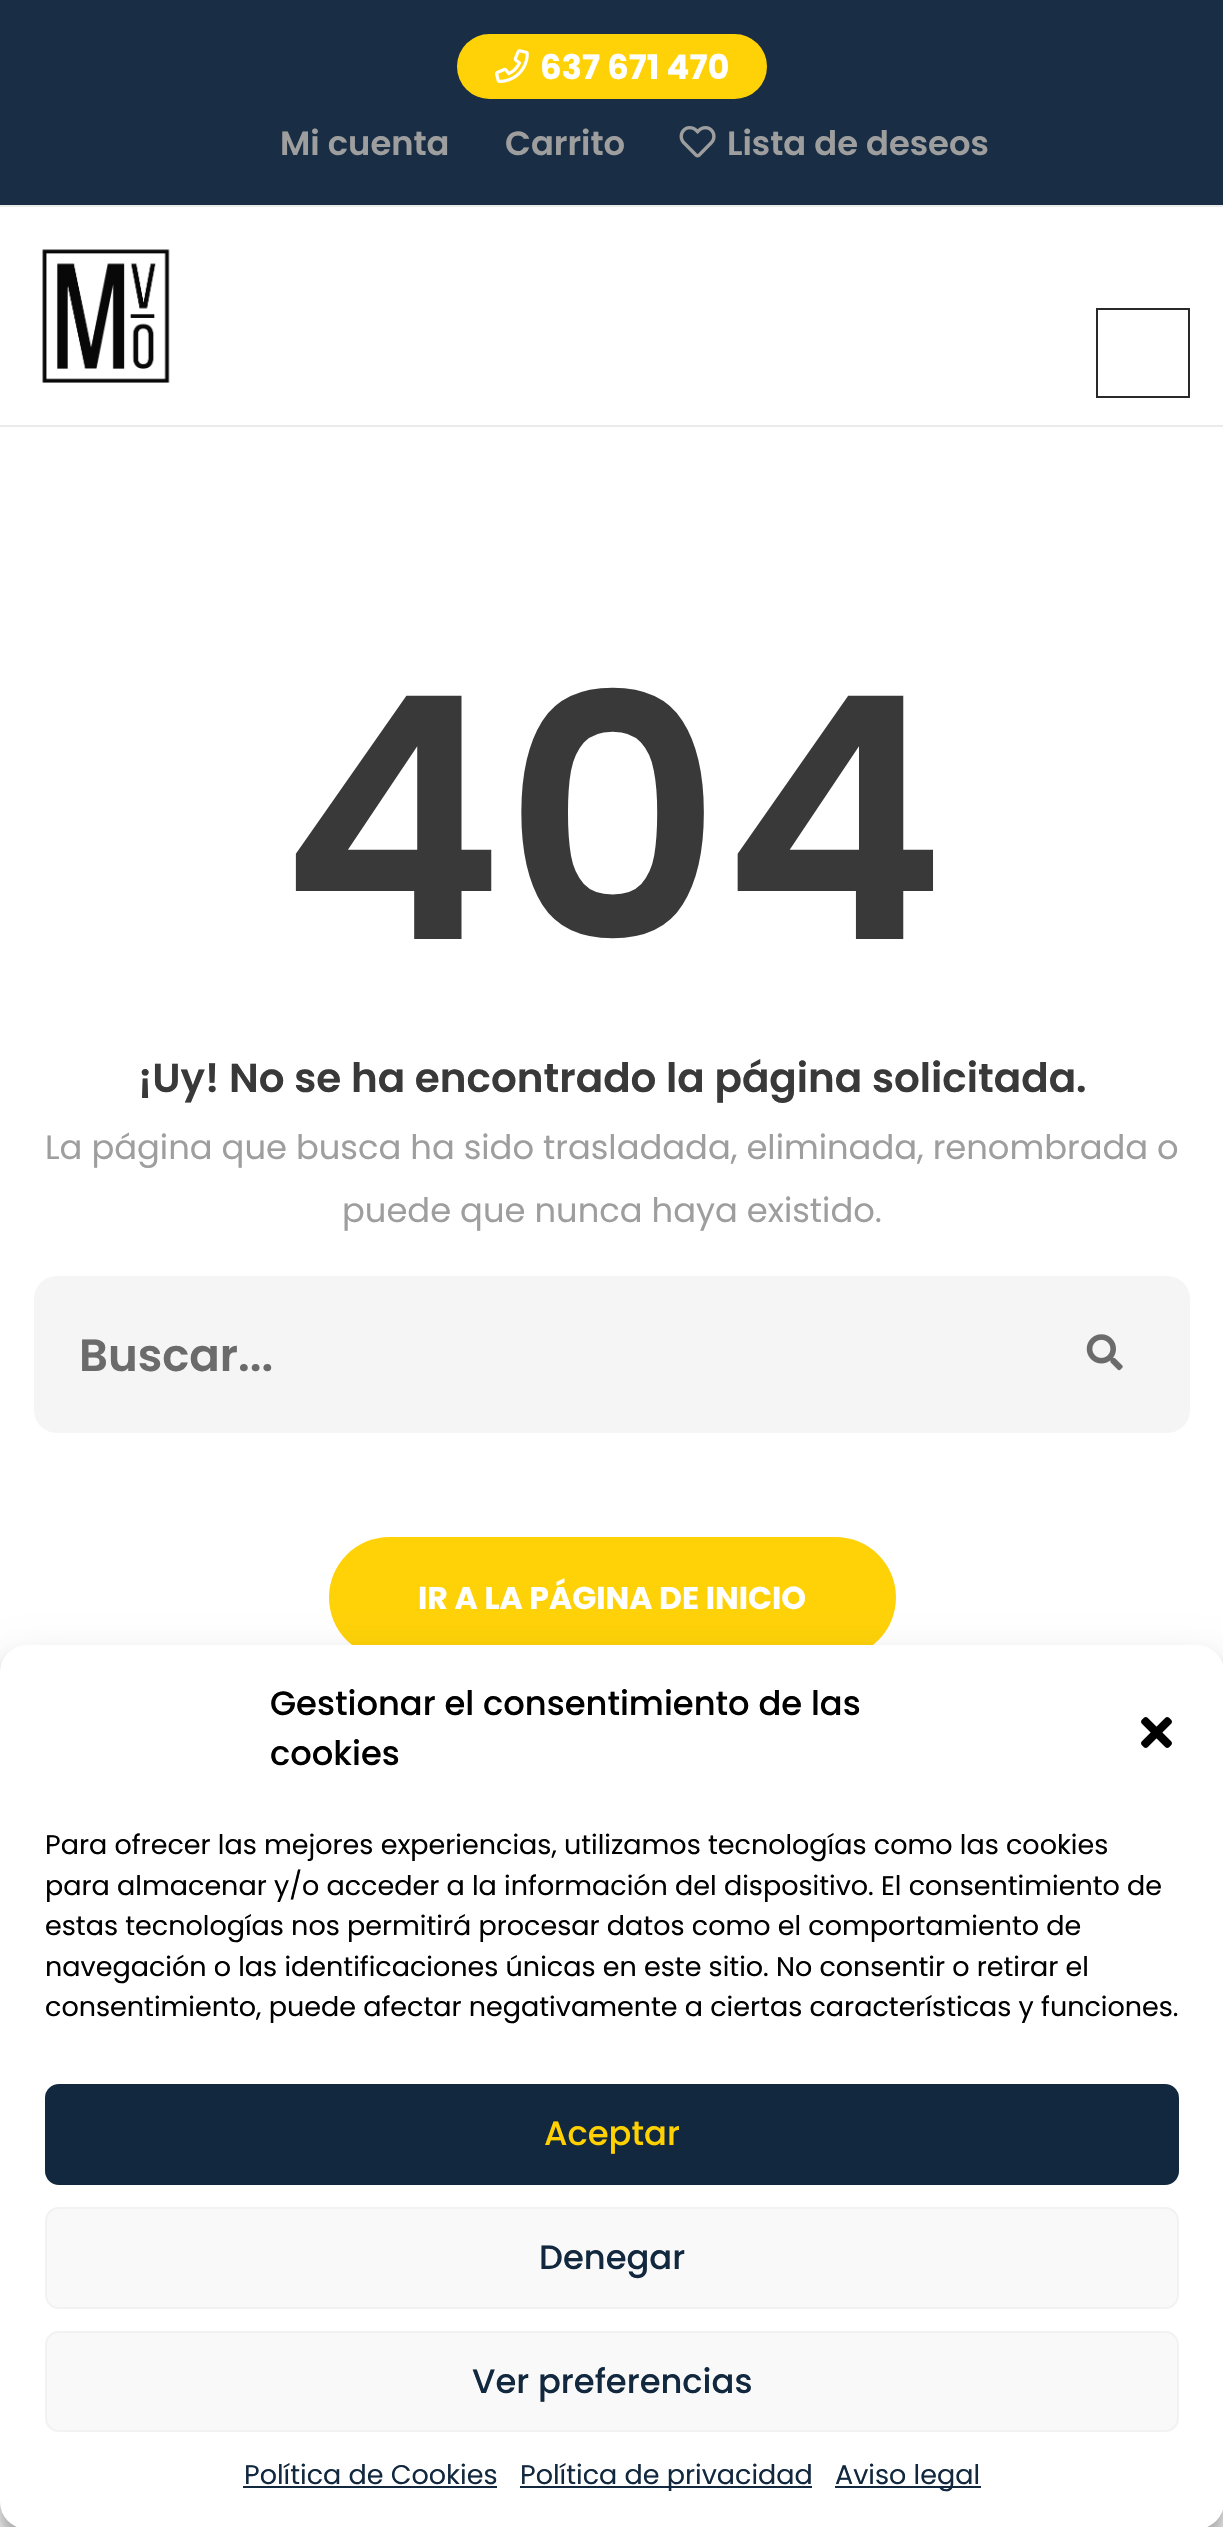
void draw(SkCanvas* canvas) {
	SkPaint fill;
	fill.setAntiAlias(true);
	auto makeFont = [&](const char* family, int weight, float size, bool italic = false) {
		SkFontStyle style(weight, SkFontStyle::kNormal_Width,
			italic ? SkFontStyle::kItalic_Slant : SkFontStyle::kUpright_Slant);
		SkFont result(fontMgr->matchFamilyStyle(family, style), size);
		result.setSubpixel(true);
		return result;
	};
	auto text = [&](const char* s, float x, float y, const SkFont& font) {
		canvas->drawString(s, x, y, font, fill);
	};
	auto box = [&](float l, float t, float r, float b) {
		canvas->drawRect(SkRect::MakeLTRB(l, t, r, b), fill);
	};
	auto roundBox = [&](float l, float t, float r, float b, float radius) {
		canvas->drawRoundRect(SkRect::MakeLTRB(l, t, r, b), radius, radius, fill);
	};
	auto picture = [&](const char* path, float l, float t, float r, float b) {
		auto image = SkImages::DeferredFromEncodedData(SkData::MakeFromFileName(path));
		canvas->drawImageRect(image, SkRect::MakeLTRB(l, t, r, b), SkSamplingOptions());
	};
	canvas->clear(0xFFFFFFFF);
	fill.setColor(0xFF192E44);
	box(0, 0, 1223, 205);
	fill.setColor(0xFFEBEBEB);
	box(0, 205, 1223, 207);
	fill.setColor(0xFFFFD208);
	roundBox(457, 34, 767, 99, 32.5f);
	picture("image0.png", 495, 49, 529, 83);
	picture("image1.png", 679, 126, 716, 158);
	picture("image2.png", 42, 249, 170, 383);
	fill.setStyle(SkPaint::kStroke_Style);
	fill.setStrokeWidth(2);
	fill.setColor(0xFF292929);
	canvas->drawRect(SkRect::MakeLTRB(1097, 309, 1189, 397), fill);
	fill.setStyle(SkPaint::kFill_Style);
	fill.setColor(0xFFEBEBEB);
	box(0, 425, 1223, 427);
	fill.setColor(0xFFF5F5F5);
	roundBox(34, 1276, 1190, 1433, 23);
	picture("image3.png", 1086, 1334, 1123, 1371);
	fill.setColor(0xFFFFD208);
	roundBox(329, 1537, 896, 1658, 60.5f);
	fill.setColor(0x3B000000);
	fill.setMaskFilter(SkMaskFilter::MakeBlur(kNormal_SkBlurStyle, 7));
	canvas->drawRoundRect(SkRect::MakeLTRB(0, 1658, 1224, 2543), 27, 27, fill);
	fill.setMaskFilter(nullptr);
	fill.setColor(0x30000000);
	fill.setMaskFilter(SkMaskFilter::MakeBlur(kNormal_SkBlurStyle, 22.5f));
	canvas->drawRoundRect(SkRect::MakeLTRB(0, 1667, 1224, 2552), 27, 27, fill);
	fill.setMaskFilter(nullptr);
	fill.setColor(0xFFFFFFFF);
	roundBox(0, 1645, 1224, 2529, 27);
	picture("image4.png", 1141, 1717, 1172, 1748);
	fill.setColor(0xFF12283E);
	canvas->drawRoundRect(SkRect::MakeLTRB(46, 2085, 1178, 2184), 13, 13, fill);
	fill.setStyle(SkPaint::kStroke_Style);
	canvas->drawRoundRect(SkRect::MakeLTRB(46, 2085, 1178, 2184), 13, 13, fill);
	fill.setStyle(SkPaint::kFill_Style);
	fill.setColor(0xFFF9F9F9);
	canvas->drawRoundRect(SkRect::MakeLTRB(46, 2208, 1178, 2308), 13, 13, fill);
	fill.setStyle(SkPaint::kStroke_Style);
	fill.setColor(0xFFF2F2F2);
	canvas->drawRoundRect(SkRect::MakeLTRB(46, 2208, 1178, 2308), 13, 13, fill);
	fill.setStyle(SkPaint::kFill_Style);
	fill.setColor(0xFFF9F9F9);
	canvas->drawRoundRect(SkRect::MakeLTRB(46, 2332, 1178, 2431), 13, 13, fill);
	fill.setStyle(SkPaint::kStroke_Style);
	fill.setColor(0xFFF2F2F2);
	canvas->drawRoundRect(SkRect::MakeLTRB(46, 2332, 1178, 2431), 13, 13, fill);
	fill.setStyle(SkPaint::kFill_Style);
	fill.setColor(0xFF12283E);
	box(243, 2486, 497, 2488);
	box(520, 2486, 812, 2488);
	box(835, 2486, 981, 2488);
	auto font1 = makeFont("Poppins", 700, 33.75f);
	fill.setColor(0xFFFFFFFF);
	text("637 671 470", 540, 79, font1);
	auto font2 = makeFont("Poppins", 600, 33.75f);
	fill.setColor(0xFF9E9E9E);
	text("Mi cuenta", 280, 155, font2);
	text("Carrito", 505, 155, font2);
	text("Lista de deseos", 727, 155, font2);
	auto font3 = makeFont("Poppins", 600, 338);
	fill.setColor(0xFF393939);
	text("404", 280, 939, font3);
	auto font4 = makeFont("Poppins", 600, 40.5f);
	text("¡Uy! No se ha encontrado la página solicitada.", 138, 1092, font4);
	auto font5 = makeFont("Poppins", 400, 33.75f);
	fill.setColor(0xFF9E9E9E);
	text("La página que busca ha sido trasladada, eliminada, renombrada o", 45, 1159, font5);
	text("puede que nunca haya existido.", 342, 1222, font5);
	auto font6 = makeFont("Poppins", 600, 45);
	fill.setColor(0xFF6B6B6B);
	text("Buscar...", 79, 1371, font6);
	auto font7 = makeFont("Poppins", 700, 31.5f);
	fill.setColor(0xFFFFFFFF);
	text("IR A LA PÁGINA DE INICIO", 418, 1609, font7);
	auto font8 = makeFont("Poppins", 500, 33.75f);
	fill.setColor(0xFF000000);
	text("Gestionar el consentimiento de las", 270, 1715, font8);
	text("cookies", 270, 1765, font8);
	auto font9 = makeFont("Poppins", 400, 27);
	text("Para ofrecer las mejores experiencias, utilizamos tecnologías como las cookies", 45, 1854, font9);
	text("para almacenar y/o acceder a la información del dispositivo. El consentimiento de", 45, 1895, font9);
	text("estas tecnologías nos permitirá procesar datos como el comportamiento de", 45, 1935, font9);
	text("navegación o las identificaciones únicas en este sitio. No consentir o retirar el", 45, 1976, font9);
	text("consentimiento, puede afectar negativamente a ciertas características y funciones.", 45, 2016, font9);
	fill.setColor(0xFFFFD100);
	text("Aceptar", 544, 2145, font8);
	fill.setColor(0xFF12283E);
	text("Denegar", 539, 2269, font8);
	text("Ver preferencias", 472, 2393, font8);
	text("Política de Cookies", 244, 2484, font9);
	text("Política de privacidad", 520, 2484, font9);
	text("Aviso legal", 835, 2484, font9);
}
